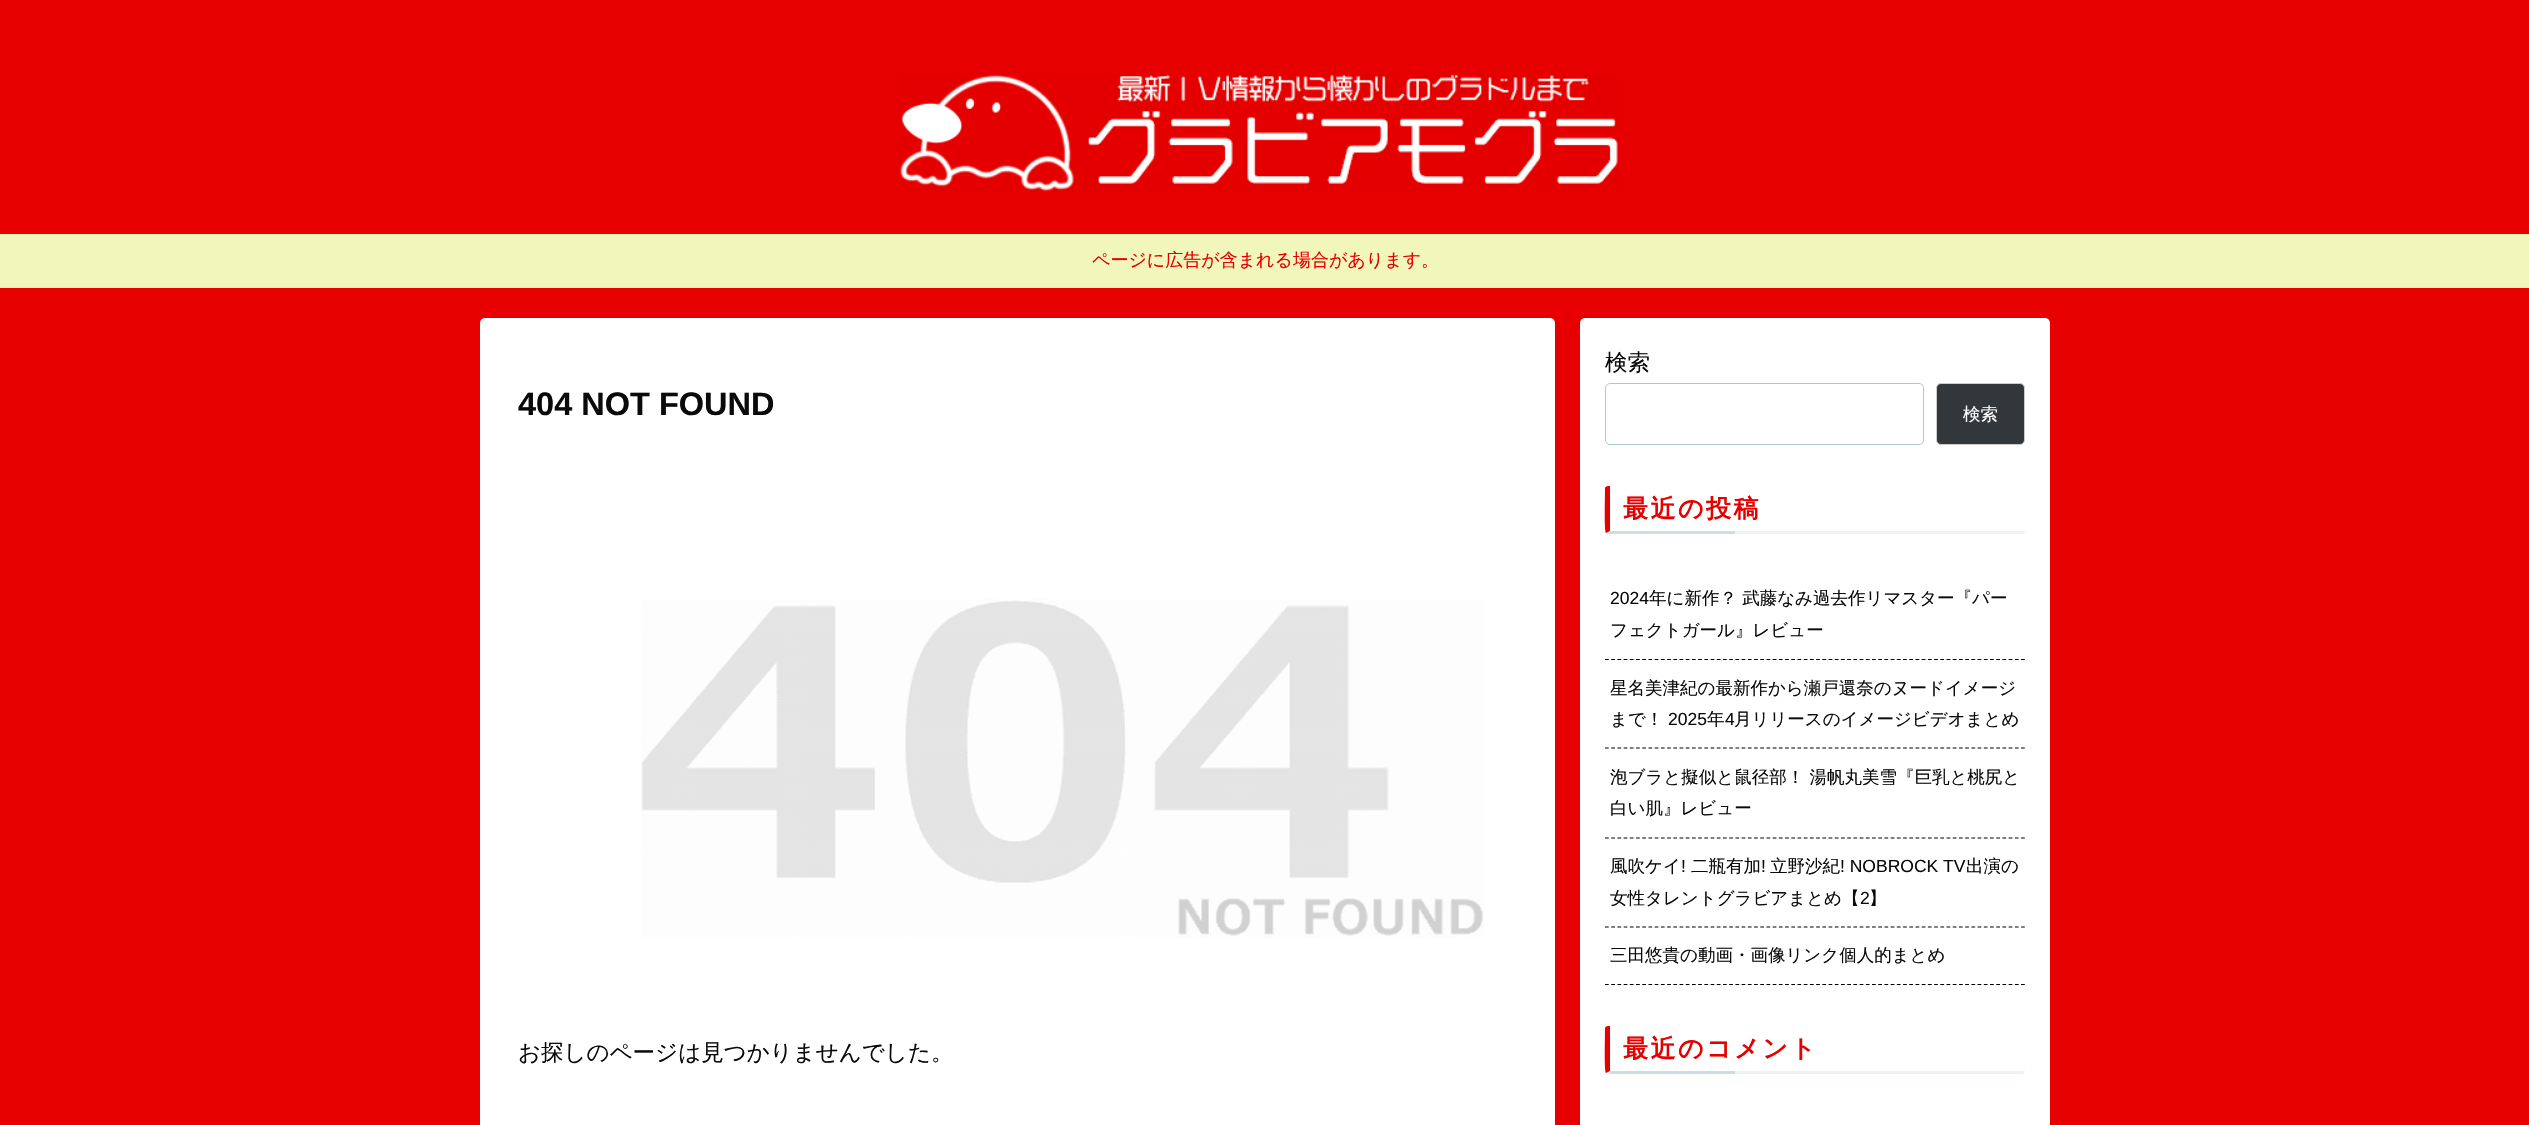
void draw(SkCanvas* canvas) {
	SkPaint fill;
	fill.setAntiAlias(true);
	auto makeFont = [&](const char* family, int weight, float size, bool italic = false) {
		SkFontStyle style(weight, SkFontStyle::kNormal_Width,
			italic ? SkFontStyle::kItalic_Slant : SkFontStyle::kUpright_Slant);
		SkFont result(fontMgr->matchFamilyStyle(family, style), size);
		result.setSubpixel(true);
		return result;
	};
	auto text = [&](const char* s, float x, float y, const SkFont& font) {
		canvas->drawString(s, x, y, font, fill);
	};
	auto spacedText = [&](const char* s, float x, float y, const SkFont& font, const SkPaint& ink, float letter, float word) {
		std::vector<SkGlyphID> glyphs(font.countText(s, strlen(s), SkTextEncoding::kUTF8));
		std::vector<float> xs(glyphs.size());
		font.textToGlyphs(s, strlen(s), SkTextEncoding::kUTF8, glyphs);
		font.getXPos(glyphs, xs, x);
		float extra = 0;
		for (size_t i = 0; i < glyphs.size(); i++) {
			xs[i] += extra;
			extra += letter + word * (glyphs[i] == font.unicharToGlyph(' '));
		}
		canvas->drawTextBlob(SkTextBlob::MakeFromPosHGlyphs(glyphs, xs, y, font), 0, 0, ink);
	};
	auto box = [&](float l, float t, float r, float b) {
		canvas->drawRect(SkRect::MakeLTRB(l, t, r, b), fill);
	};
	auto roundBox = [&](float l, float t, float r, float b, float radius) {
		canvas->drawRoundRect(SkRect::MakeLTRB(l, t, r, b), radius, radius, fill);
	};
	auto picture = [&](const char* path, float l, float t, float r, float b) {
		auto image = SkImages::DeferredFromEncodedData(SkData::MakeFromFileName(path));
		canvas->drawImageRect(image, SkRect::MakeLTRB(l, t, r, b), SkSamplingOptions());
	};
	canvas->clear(0xFFE60000);
	picture("image0.png", 900, 74, 1618, 192);
	fill.setColor(0xFFF1F7BB);
	box(0, 234, 2529, 288);
	fill.setColor(0xFFFFFFFF);
	roundBox(480, 318, 1555, 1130, 5);
	picture("image1.png", 641, 599, 1484, 938);
	roundBox(1580, 318, 2050, 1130, 5);
	fill.setStyle(SkPaint::kStroke_Style);
	fill.setStrokeWidth(1);
	fill.setColor(0xFFAEC9CC);
	canvas->drawRoundRect(SkRect::MakeLTRB(1605.5f, 383.5f, 1923.5f, 444.5f), 4.5f, 4.5f, fill);
	fill.setStyle(SkPaint::kFill_Style);
	fill.setColor(0xFF32373C);
	canvas->drawRoundRect(SkRect::MakeLTRB(1936.5f, 383.5f, 2024.5f, 444.5f), 4.5f, 4.5f, fill);
	fill.setStyle(SkPaint::kStroke_Style);
	fill.setColor(0xFFCCCCCC);
	canvas->drawRoundRect(SkRect::MakeLTRB(1936.5f, 383.5f, 2024.5f, 444.5f), 4.5f, 4.5f, fill);
	fill.setStyle(SkPaint::kFill_Style);
	fill.setColor(0xFFEDF3F3);
	canvas->drawPath(SkPathBuilder().moveTo(1607, 534).lineTo(1606, 533).lineTo(1610, 531).lineTo(2025, 531).cubicTo(2025, 532, 2024, 533, 2023, 534).close().detach(), fill);
	fill.setColor(0xFFE60000);
	canvas->drawPath(SkPathBuilder().moveTo(1605, 489).cubicTo(1605, 494, 1604, 532, 1606, 533).lineTo(1610, 531).lineTo(1610, 486).cubicTo(1607, 486, 1605, 486, 1605, 489).close().detach(), fill);
	fill.setColor(0xFFCDDEE0);
	box(1610, 531, 1735, 534);
	fill.setStyle(SkPaint::kStroke_Style);
	fill.setStrokeWidth(1.2f);
	fill.setColor(0xFF000000);
	fill.setPathEffect(SkDashPathEffect::Make({{3.75f, 2.46f}}, 0));
	canvas->drawPath(SkPathBuilder().moveTo(1605, 659.5f).lineTo(2025, 659.5f).detach(), fill);
	fill.setPathEffect(nullptr);
	fill.setPathEffect(SkDashPathEffect::Make({{3.75f, 2.46f}}, 0));
	canvas->drawPath(SkPathBuilder().moveTo(1605, 748).lineTo(2025, 748).detach(), fill);
	fill.setPathEffect(nullptr);
	fill.setPathEffect(SkDashPathEffect::Make({{3.75f, 2.46f}}, 0));
	canvas->drawPath(SkPathBuilder().moveTo(1605, 838).lineTo(2025, 838).detach(), fill);
	fill.setPathEffect(nullptr);
	fill.setPathEffect(SkDashPathEffect::Make({{3.75f, 2.46f}}, 0));
	canvas->drawPath(SkPathBuilder().moveTo(1605, 927).lineTo(2025, 927).detach(), fill);
	fill.setPathEffect(nullptr);
	fill.setPathEffect(SkDashPathEffect::Make({{3.75f, 2.46f}}, 0));
	canvas->drawPath(SkPathBuilder().moveTo(1605, 984.5f).lineTo(2025, 984.5f).detach(), fill);
	fill.setPathEffect(nullptr);
	fill.setStyle(SkPaint::kFill_Style);
	fill.setColor(0xFFEDF3F3);
	canvas->drawPath(SkPathBuilder().moveTo(1607, 1074).lineTo(1606, 1073).lineTo(1610, 1071).lineTo(2025, 1071).cubicTo(2025, 1072, 2024, 1073, 2023, 1074).close().detach(), fill);
	fill.setColor(0xFFE60000);
	canvas->drawPath(SkPathBuilder().moveTo(1605, 1029).cubicTo(1605, 1034, 1604, 1072, 1606, 1073).lineTo(1610, 1071).lineTo(1610, 1026).cubicTo(1607, 1026, 1605, 1026, 1605, 1029).close().detach(), fill);
	fill.setColor(0xFFCDDEE0);
	box(1610, 1071, 1735, 1074);
	auto font1 = makeFont("WenQuanYi Zen Hei", 500, 18);
	fill.setColor(0xFFE60000);
	text("ページに広告が含まれる場合があります。", 1092, 266, font1);
	auto font2 = makeFont("Liberation Sans", 700, 32.5f);
	fill.setColor(0xFF0A0A0A);
	text("404 NOT FOUND", 518, 415, font2);
	auto font3 = makeFont("WenQuanYi Zen Hei", 500, 22.5f);
	text("お探しのページは見つかりませんでした。", 518, 1060, font3);
	text("検索", 1605, 370, font3);
	auto font4 = makeFont("WenQuanYi Zen Hei", 500, 17.5f);
	fill.setColor(0xFFFFFFFF);
	text("検索", 1963, 420, font4);
	auto font5 = makeFont("WenQuanYi Zen Hei", 700, 25);
	fill.setColor(0xFFE60000);
	spacedText("最近の投稿", 1623, 517, font5, fill, 2.5f, 0);
	auto font6 = makeFont("Liberation Sans", 400, 17.5f);
	fill.setColor(0xFF0A0A0A);
	text("2024", 1610, 604, font6);
	text("年に新作？ 武藤なみ過去作リマスター『パー", 1649, 604, font4);
	text("フェクトガール』レビュー", 1610, 636, font4);
	text("星名美津紀の最新作から瀬戸還奈のヌードイメージ", 1610, 694, font4);
	text("まで！", 1610, 725, font4);
	text("2025", 1668, 725, font6);
	text("年", 1707, 725, font4);
	text("4", 1725, 725, font6);
	text("月リリースのイメージビデオまとめ", 1734, 725, font4);
	text("泡ブラと擬似と鼠径部！ 湯帆丸美雪『巨乳と桃尻と", 1610, 783, font4);
	text("白い肌』レビュー", 1610, 814, font4);
	text("風吹ケイ", 1610, 872, font4);
	text("!", 1681, 872, font6);
	text("二瓶有加", 1691, 872, font4);
	text("!", 1761, 872, font6);
	text("立野沙紀", 1770, 872, font4);
	text("! NOBROCK TV", 1840, 872, font6);
	text("出演の", 1966, 872, font4);
	text("女性タレントグラビアまとめ【", 1610, 904, font4);
	text("2", 1860, 904, font6);
	text("】", 1869, 904, font4);
	text("三田悠貴の動画・画像リンク個人的まとめ", 1610, 961, font4);
	fill.setColor(0xFFE60000);
	spacedText("最近のコメント", 1623, 1057, font5, fill, 2.5f, 0);
}
